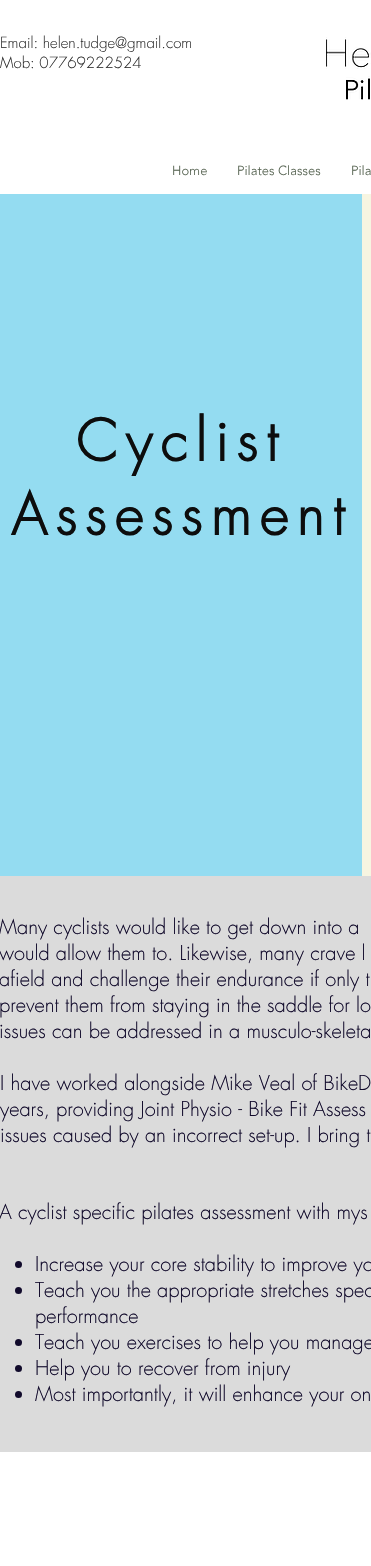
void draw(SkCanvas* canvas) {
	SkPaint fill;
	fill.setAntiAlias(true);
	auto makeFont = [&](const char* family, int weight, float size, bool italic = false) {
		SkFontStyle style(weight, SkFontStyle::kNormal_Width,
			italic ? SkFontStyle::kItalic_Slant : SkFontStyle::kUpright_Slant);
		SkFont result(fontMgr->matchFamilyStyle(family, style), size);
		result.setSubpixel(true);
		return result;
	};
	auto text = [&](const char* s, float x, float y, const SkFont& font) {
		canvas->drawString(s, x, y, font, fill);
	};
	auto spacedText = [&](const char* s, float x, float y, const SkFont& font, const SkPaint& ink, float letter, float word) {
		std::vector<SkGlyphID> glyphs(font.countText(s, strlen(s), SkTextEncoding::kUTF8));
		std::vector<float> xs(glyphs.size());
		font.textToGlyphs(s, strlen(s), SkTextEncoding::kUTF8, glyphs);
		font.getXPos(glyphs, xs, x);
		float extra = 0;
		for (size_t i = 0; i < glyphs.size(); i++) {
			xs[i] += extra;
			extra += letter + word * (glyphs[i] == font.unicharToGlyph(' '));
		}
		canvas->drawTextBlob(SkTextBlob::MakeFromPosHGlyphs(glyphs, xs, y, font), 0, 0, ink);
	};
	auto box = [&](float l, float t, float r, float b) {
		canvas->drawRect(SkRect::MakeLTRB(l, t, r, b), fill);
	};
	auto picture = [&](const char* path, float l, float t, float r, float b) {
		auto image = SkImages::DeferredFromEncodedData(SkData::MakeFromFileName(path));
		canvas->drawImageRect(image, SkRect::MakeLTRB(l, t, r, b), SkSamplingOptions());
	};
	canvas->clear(0xFFFFFFFF);
	picture("image0.png", 326, 37, 371, 100);
	fill.setColor(0xFF94DCF1);
	box(0, 194, 362, 876);
	fill.setColor(0xFFF7F5E1);
	box(362, 194, 371, 876);
	fill.setColor(0xFFDBDBDB);
	box(0, 876, 371, 1452);
	fill.setColor(0xFF110A2B);
	canvas->drawCircle(18.5f, 1264.5f, 3.5f, fill);
	canvas->drawCircle(18.5f, 1290.5f, 3.5f, fill);
	canvas->drawCircle(18.5f, 1342.5f, 3.5f, fill);
	canvas->drawCircle(18.5f, 1368.5f, 3.5f, fill);
	canvas->drawCircle(18.5f, 1394.5f, 3.5f, fill);
	auto font1 = makeFont("futura", 300, 15);
	fill.setColor(0xFF303030);
	text("Email: helen.tudge@gmail.com", 0, 48, font1);
	text("Mob: 07769222524", 0, 68, font1);
	auto font2 = makeFont("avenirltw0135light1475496", 300, 13);
	fill.setColor(0xFF576452);
	text("Home", 172, 175, font2);
	text("Pilates Classes", 237, 175, font2);
	text("Pila", 351, 175, font2);
	auto font3 = makeFont("futura", 700, 56);
	fill.setColor(0xFF0D0D0D);
	spacedText("Cyclist", 76, 461, font3, fill, 8.5f, 0);
	spacedText("Assessment", 11, 535, font3, fill, 8.5f, 0);
	auto font4 = makeFont("futura", 300, 20);
	fill.setColor(0xFF110A2B);
	text("Many cyclists would like to get down into a", -1, 934, font4);
	text("would allow them to. Likewise, many crave l", -1, 960, font4);
	text("afield and challenge their endurance if only t", -1, 986, font4);
	text("prevent them from staying in the saddle for lo", -1, 1012, font4);
	text("issues can be addressed in a musculo-skeleta", -1, 1038, font4);
	text("I have worked alongside Mike Veal of BikeD", 0, 1090, font4);
	text("years, providing Joint Physio - Bike Fit Assess", 0, 1116, font4);
	text("issues caused by an incorrect set-up. I bring t", 0, 1142, font4);
	text("A cyclist specific pilates assessment with mys", -1, 1219, font4);
	text("Increase your core stability to improve yo", 35, 1271, font4);
	text("Teach you the appropriate stretches spec", 35, 1297, font4);
	text("performance", 35, 1323, font4);
	text("Teach you exercises to help you manage", 35, 1349, font4);
	text("Help you to recover from injury", 35, 1375, font4);
	text("Most importantly, it will enhance your on", 35, 1401, font4);
}
